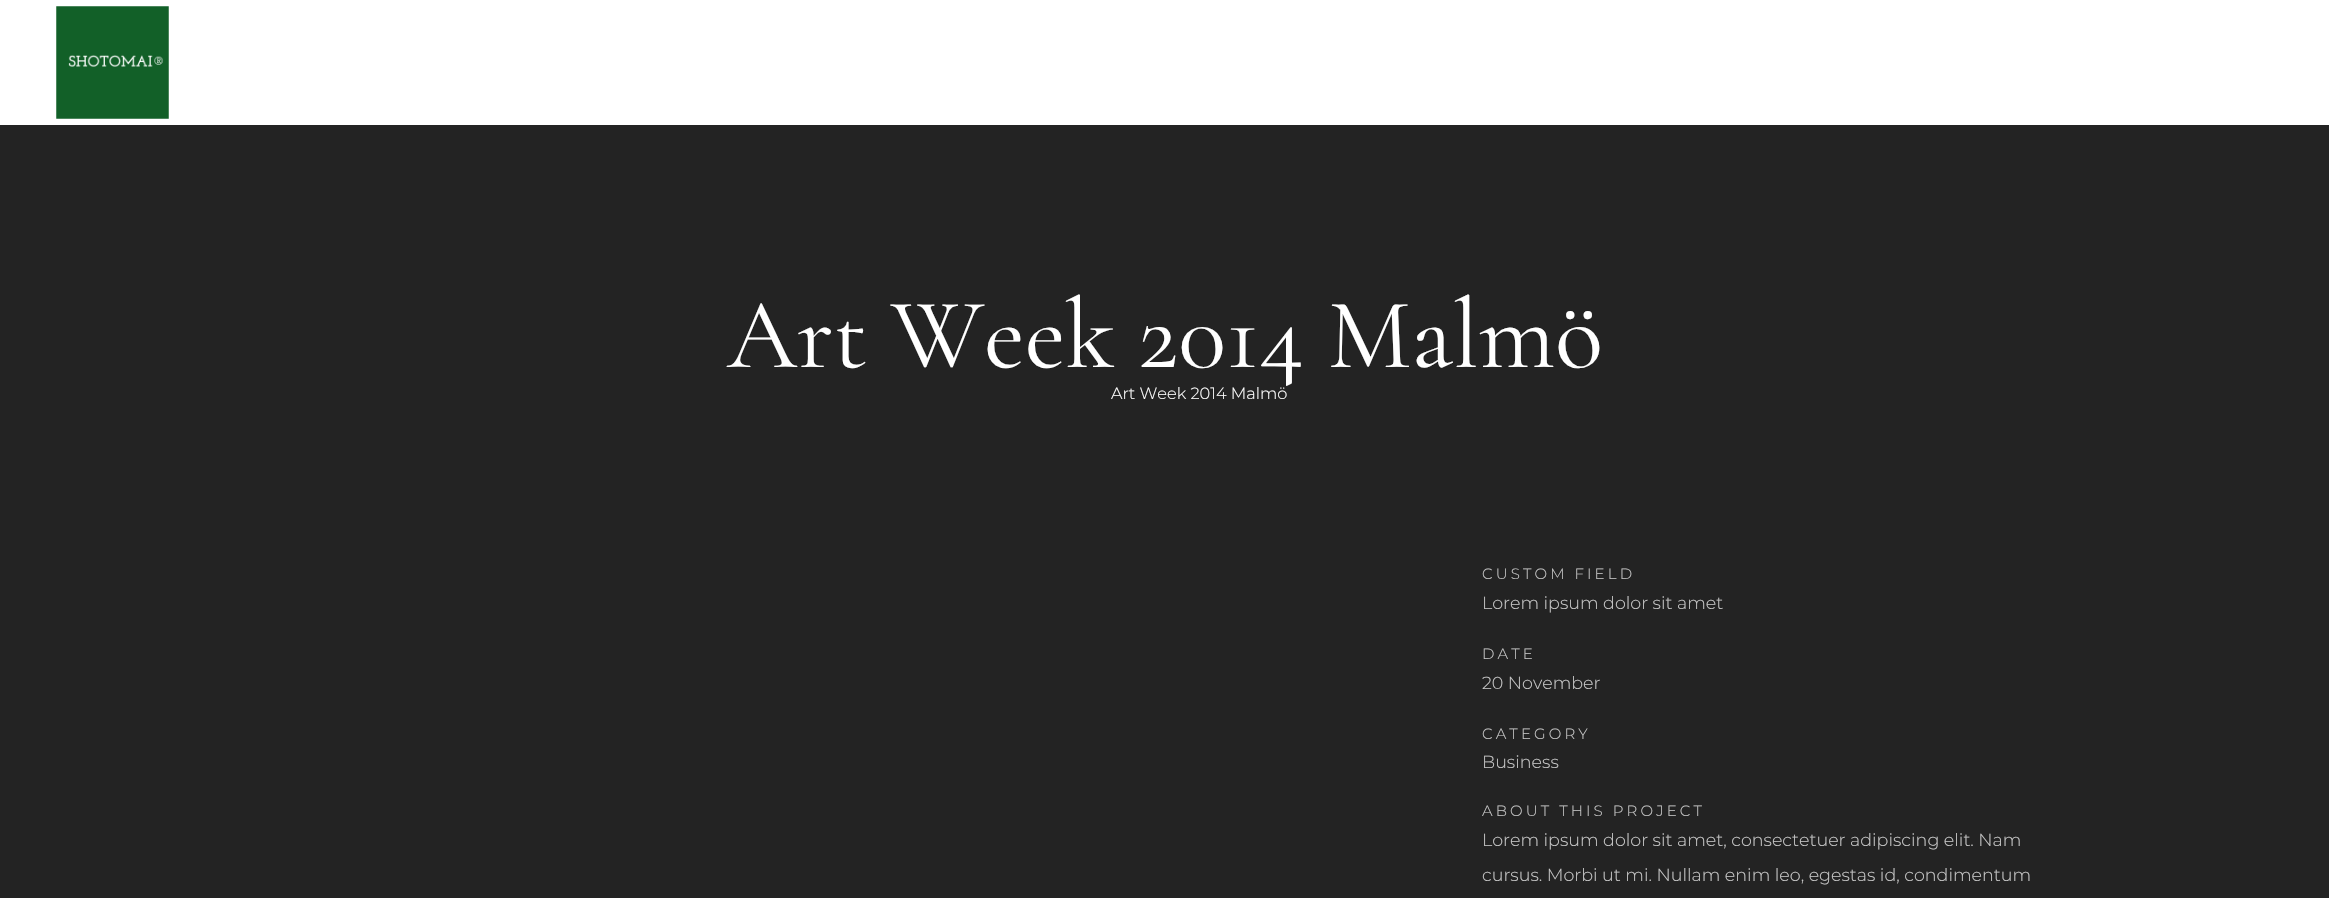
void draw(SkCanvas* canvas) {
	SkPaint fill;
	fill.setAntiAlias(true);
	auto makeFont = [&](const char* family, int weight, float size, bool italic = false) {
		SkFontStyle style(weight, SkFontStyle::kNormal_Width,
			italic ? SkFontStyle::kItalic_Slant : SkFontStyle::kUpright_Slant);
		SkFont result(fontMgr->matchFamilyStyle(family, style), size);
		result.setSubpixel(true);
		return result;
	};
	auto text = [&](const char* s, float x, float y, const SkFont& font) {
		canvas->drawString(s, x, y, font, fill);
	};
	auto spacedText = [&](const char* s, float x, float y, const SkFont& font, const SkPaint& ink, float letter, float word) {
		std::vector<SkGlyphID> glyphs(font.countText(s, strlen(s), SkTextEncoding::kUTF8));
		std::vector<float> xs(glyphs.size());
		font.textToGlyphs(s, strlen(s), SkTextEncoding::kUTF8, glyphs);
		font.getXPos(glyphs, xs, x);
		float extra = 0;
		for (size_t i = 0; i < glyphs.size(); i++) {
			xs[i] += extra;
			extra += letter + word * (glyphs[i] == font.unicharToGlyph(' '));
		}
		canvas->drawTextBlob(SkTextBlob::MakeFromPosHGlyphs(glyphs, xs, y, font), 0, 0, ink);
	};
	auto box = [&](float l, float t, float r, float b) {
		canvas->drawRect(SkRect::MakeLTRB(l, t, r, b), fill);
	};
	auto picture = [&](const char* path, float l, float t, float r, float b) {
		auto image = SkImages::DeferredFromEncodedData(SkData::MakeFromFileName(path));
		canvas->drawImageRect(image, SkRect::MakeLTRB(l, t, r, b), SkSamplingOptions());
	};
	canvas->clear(0xFF232323);
	fill.setColor(0xFFFFFFFF);
	box(0, 0, 2329, 125);
	picture("image0.png", 56, 6, 169, 119);
	auto font1 = makeFont("Cormorant Garamond", 400, 100);
	text("Art Week 2014 Malmö", 727, 367, font1);
	auto font2 = makeFont("Montserrat", 300, 16.25f);
	text("Art Week 2014 Malmö", 1111, 399, font2);
	auto font3 = makeFont("Montserrat", 300, 15);
	fill.setColor(0xFFC6C6C6);
	spacedText("CUSTOM FIELD", 1482, 579, font3, fill, 3.1f, 0);
	auto font4 = makeFont("Montserrat", 300, 17.5f);
	text("Lorem ipsum dolor sit amet", 1482, 609, font4);
	spacedText("DATE", 1482, 659, font3, fill, 3.1f, 0);
	text("20 November", 1482, 689, font4);
	spacedText("CATEGORY", 1482, 739, font3, fill, 3.1f, 0);
	text("Business", 1482, 768, font4);
	spacedText("ABOUT THIS PROJECT", 1482, 816, font3, fill, 3.1f, 0);
	text("Lorem ipsum dolor sit amet, consectetuer adipiscing elit. Nam", 1482, 846, font4);
	text("cursus. Morbi ut mi. Nullam enim leo, egestas id, condimentum", 1482, 881, font4);
}
